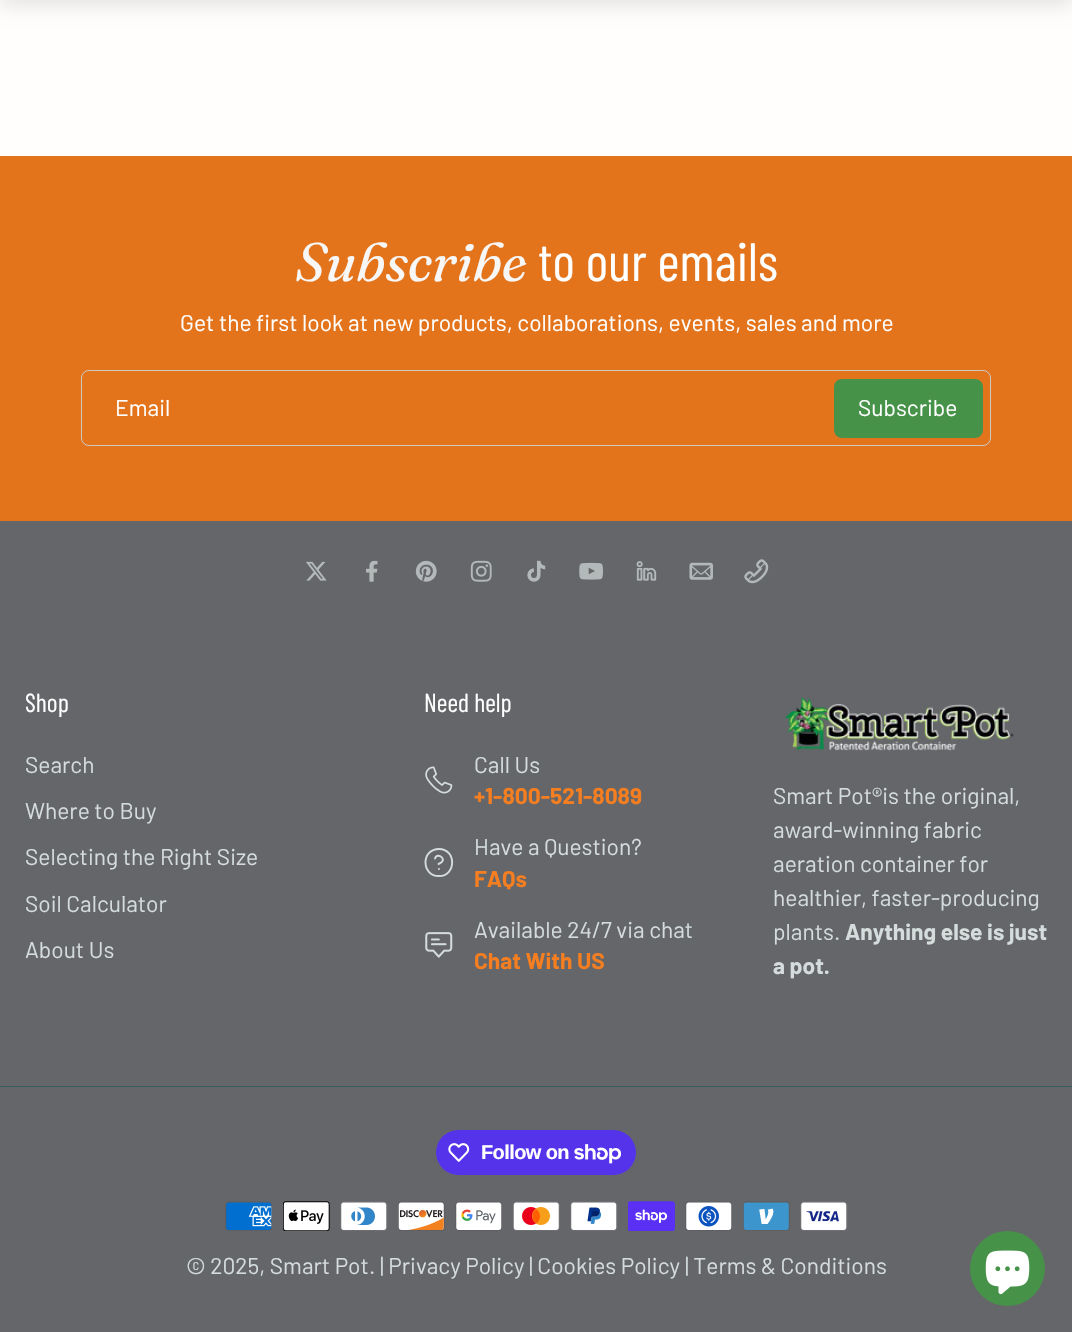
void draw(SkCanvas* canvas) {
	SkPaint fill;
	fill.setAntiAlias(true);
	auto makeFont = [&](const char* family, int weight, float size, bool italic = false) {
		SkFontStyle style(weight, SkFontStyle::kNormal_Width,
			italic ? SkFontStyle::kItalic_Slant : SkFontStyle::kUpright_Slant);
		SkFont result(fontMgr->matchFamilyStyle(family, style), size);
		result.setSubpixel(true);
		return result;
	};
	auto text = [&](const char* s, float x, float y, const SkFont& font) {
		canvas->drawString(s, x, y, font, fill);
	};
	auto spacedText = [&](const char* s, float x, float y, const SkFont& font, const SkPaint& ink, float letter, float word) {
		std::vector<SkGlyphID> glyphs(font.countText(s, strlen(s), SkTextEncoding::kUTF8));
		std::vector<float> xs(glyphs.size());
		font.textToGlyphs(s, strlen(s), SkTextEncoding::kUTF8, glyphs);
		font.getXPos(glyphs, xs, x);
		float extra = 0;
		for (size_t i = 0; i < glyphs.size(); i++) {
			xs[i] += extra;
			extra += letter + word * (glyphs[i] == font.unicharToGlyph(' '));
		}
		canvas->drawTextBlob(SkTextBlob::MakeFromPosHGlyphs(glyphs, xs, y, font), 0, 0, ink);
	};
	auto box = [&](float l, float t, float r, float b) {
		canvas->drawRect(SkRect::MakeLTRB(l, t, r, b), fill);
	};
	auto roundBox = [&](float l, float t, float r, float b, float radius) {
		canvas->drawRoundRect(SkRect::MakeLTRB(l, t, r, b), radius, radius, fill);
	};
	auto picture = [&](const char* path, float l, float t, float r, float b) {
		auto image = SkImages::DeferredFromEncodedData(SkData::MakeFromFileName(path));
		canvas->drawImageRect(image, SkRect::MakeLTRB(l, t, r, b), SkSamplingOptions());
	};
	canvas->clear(0xFFFFFEFD);
	fill.setColor(0x1A000000);
	fill.setMaskFilter(SkMaskFilter::MakeBlur(kNormal_SkBlurStyle, 9.5f));
	canvas->drawRect(SkRect::MakeLTRB(0, -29, 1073, 6), fill);
	fill.setMaskFilter(nullptr);
	fill.setColor(0xFFE4741C);
	box(0, 156, 1072, 521);
	fill.setStyle(SkPaint::kStroke_Style);
	fill.setStrokeWidth(1);
	fill.setColor(0xFFCCCAC2);
	canvas->drawRoundRect(SkRect::MakeLTRB(81.5f, 370.5f, 990.5f, 445.5f), 7.5f, 7.5f, fill);
	fill.setStyle(SkPaint::kFill_Style);
	fill.setColor(0xFF459248);
	roundBox(834, 379, 983, 438, 8);
	fill.setColor(0xFF65666A);
	box(0, 521, 1072, 1332);
	picture("image0.png", 306, 561, 327, 581);
	picture("image1.png", 366, 560, 378, 582);
	picture("image2.png", 415, 560, 437, 582);
	picture("image3.png", 470, 560, 492, 582);
	picture("image4.png", 527, 560, 546, 582);
	picture("image5.png", 579, 562, 603, 580);
	picture("image6.png", 636, 561, 657, 581);
	picture("image7.png", 689, 562, 713, 580);
	picture("image8.png", 744, 559, 769, 584);
	fill.setColor(0xFF345C58);
	box(0, 1086, 1072, 1087);
	picture("image9.png", 425, 766, 453, 794);
	fill.setStyle(SkPaint::kStroke_Style);
	fill.setStrokeWidth(1.9f);
	fill.setStrokeCap(SkPaint::kRound_Cap);
	fill.setStrokeJoin(SkPaint::kRound_Join);
	fill.setColor(0xFFD4DDDB);
	canvas->drawPath(SkPathBuilder().moveTo(439, 876).cubicTo(456.5f, 876, 456.5f, 849, 439, 849).cubicTo(421, 849, 421, 876, 439, 876).close().moveTo(435, 858.5f).cubicTo(437.5f, 851, 449, 860.5f, 438.5f, 864).moveTo(439, 869).lineTo(439, 869).detach(), fill);
	picture("image10.png", 425, 932, 453, 958);
	picture("image11.png", 784, 697, 1014, 751);
	fill.setStyle(SkPaint::kFill_Style);
	fill.setColor(0xFF5433EB);
	roundBox(436, 1130, 636, 1175, 22.5f);
	picture("image12.png", 448, 1143, 470, 1162);
	picture("image13.png", 574, 1144, 621, 1164);
	picture("image14.png", 225, 1201, 272, 1231);
	picture("image15.png", 283, 1201, 330, 1231);
	picture("image16.png", 340, 1201, 388, 1231);
	picture("image17.png", 398, 1201, 445, 1231);
	picture("image18.png", 455, 1201, 502, 1231);
	picture("image19.png", 513, 1201, 560, 1231);
	picture("image20.png", 570, 1201, 618, 1231);
	picture("image21.png", 628, 1201, 675, 1231);
	picture("image22.png", 685, 1201, 732, 1231);
	picture("image23.png", 743, 1201, 790, 1231);
	picture("image24.png", 800, 1201, 848, 1231);
	fill.setColor(0xFF459248);
	canvas->drawCircle(1007.5f, 1268.5f, 37.5f, fill);
	picture("image25.png", 985, 1250, 1030, 1295);
	auto font1 = makeFont("Fraunces", 400, 54, true);
	fill.setColor(0xFFF7F7F7);
	text("Subscribe", 295, 281, font1);
	auto font2 = makeFont("Barlow Condensed", 400, 54);
	fill.setColor(0xFFFFFFFF);
	text("to our emails", 538, 281, font2);
	auto font3 = makeFont("Barlow", 400, 22.75f);
	text("Get the first look at new products, collaborations, events, sales and more", 180, 331, font3);
	text("Email", 115, 416, font3);
	text("Subscribe", 858, 416, font3);
	auto font4 = makeFont("Barlow Condensed", 400, 26);
	text("Shop", 25, 712, font4);
	fill.setColor(0xFFD4DDDB);
	text("Search", 25, 773, font3);
	text("Where to Buy", 25, 819, font3);
	text("Selecting the Right Size", 25, 865, font3);
	text("Soil Calculator", 25, 912, font3);
	text("About Us", 25, 958, font3);
	fill.setColor(0xFFFFFFFF);
	text("Need help", 424, 712, font4);
	fill.setColor(0xFFD4DDDB);
	text("Call Us", 474, 773, font3);
	auto font5 = makeFont("Barlow", 700, 22.75f);
	fill.setColor(0xFFF57E20);
	text("+1-800-521-8089", 474, 804, font5);
	fill.setColor(0xFFD4DDDB);
	text("Have a Question?", 474, 855, font3);
	fill.setColor(0xFFF57E20);
	text("FAQs", 474, 887, font5);
	fill.setColor(0xFFD4DDDB);
	text("Available 24/7 via chat", 474, 938, font3);
	fill.setColor(0xFFF57E20);
	text("Chat With US", 474, 969, font5);
	fill.setColor(0xFFD4DDDB);
	text("Smart Pot®is the original,", 773, 804, font3);
	text("award-winning fabric", 773, 838, font3);
	text("aeration container for", 773, 872, font3);
	text("healthier, faster-producing", 773, 906, font3);
	text("plants.", 773, 940, font3);
	text("Anything else is just", 845, 940, font5);
	text("a pot.", 773, 974, font5);
	auto font6 = makeFont("Liberation Sans", 700, 20);
	fill.setColor(0xFFFFFFFF);
	spacedText("Follow on", 481, 1159, font6, fill, -0.6f, 0);
	fill.setColor(0xFFD4DDDB);
	text("© 2025, Smart Pot", 186, 1274, font3);
	text(".", 369, 1274, font3);
	text("| Privacy Policy", 380, 1274, font3);
	text("| Cookies Policy", 529, 1274, font3);
	text("| Terms & Conditions", 685, 1274, font3);
}
